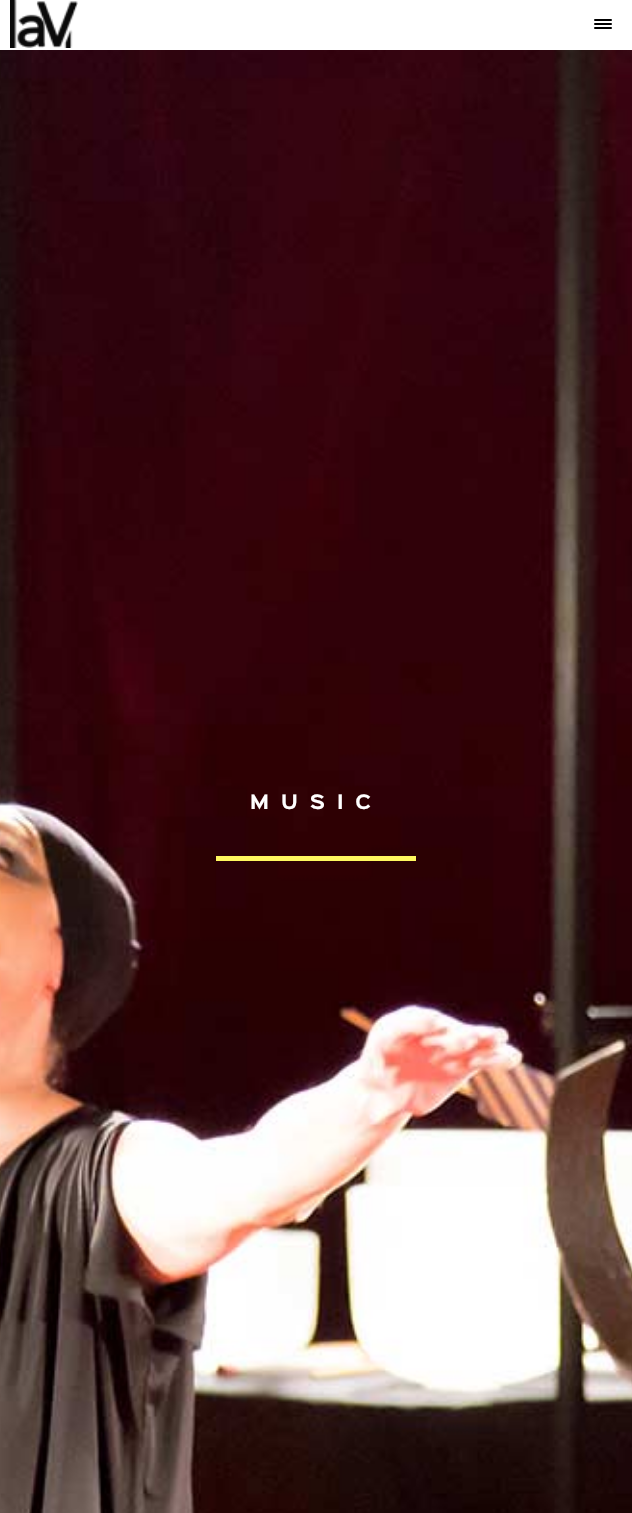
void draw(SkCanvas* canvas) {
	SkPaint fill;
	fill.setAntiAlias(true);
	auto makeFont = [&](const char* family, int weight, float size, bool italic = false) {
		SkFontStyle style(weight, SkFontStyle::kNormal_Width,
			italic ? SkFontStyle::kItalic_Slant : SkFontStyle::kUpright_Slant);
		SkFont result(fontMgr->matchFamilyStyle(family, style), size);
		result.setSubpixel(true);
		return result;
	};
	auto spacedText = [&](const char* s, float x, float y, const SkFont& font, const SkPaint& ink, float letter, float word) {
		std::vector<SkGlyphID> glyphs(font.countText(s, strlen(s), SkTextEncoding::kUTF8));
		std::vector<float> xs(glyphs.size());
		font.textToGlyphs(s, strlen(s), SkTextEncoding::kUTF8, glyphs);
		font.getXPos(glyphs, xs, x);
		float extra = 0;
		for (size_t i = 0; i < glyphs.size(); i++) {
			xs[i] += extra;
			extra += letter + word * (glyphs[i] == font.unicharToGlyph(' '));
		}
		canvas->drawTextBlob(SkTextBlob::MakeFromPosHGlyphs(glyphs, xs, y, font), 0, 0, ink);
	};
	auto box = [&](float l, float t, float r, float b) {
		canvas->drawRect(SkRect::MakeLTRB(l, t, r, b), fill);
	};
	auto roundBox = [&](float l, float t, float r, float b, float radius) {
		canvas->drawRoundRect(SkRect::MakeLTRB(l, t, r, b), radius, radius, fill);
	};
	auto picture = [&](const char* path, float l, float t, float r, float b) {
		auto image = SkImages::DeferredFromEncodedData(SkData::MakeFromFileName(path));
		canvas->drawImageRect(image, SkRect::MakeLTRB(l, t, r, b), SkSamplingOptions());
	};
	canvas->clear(0xFFFFFFFF);
	picture("image0.png", 10, 0, 78, 48);
	fill.setColor(0xFF000000);
	roundBox(594, 19, 612, 21, 1);
	roundBox(594, 23, 612, 25, 1);
	roundBox(594, 27, 612, 29, 1);
	picture("image1.png", 0, 50, 632, 1513);
	fill.setColor(0xFFFFF85F);
	box(216, 856, 416, 861);
	auto font1 = makeFont("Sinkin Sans", 700, 18);
	fill.setColor(0xFFFFFFFF);
	spacedText("MUSIC", 250, 809, font1, fill, 12, 0);
}
